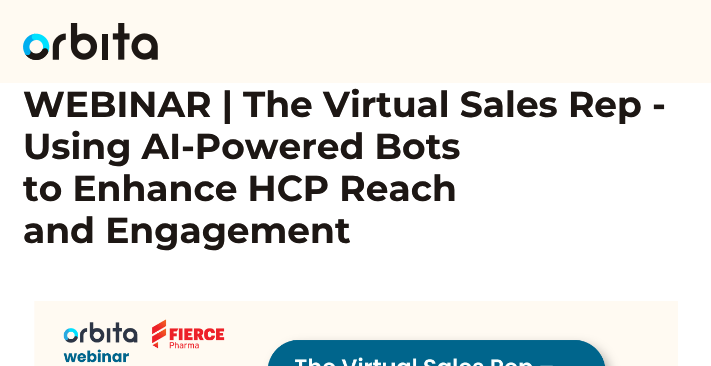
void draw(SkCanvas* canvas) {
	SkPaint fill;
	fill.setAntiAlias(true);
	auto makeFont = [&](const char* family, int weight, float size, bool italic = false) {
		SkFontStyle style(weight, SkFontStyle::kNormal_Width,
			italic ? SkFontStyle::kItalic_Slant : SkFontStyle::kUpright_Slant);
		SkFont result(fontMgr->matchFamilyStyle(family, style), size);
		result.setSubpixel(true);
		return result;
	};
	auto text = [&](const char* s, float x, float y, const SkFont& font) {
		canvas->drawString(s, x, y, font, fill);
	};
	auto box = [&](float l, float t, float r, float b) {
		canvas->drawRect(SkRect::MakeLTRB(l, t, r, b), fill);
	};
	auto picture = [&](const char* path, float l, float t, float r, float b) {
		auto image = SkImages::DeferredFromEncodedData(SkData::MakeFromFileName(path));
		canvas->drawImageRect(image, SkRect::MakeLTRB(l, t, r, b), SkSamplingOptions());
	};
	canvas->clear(0xFFFFFFFF);
	fill.setColor(0xFFFFFAF2);
	box(0, 0, 711, 83);
	picture("image0.png", 23, 23, 158, 60);
	picture("image1.png", 34, 301, 678, 366);
	auto font1 = makeFont("Montserrat", 700, 36);
	fill.setColor(0xFF1D1714);
	text("WEBINAR | The Virtual Sales Rep -", 23, 117, font1);
	text("Using AI-Powered Bots", 23, 159, font1);
	text("to Enhance HCP Reach", 23, 201, font1);
	text("and Engagement", 23, 243, font1);
}
